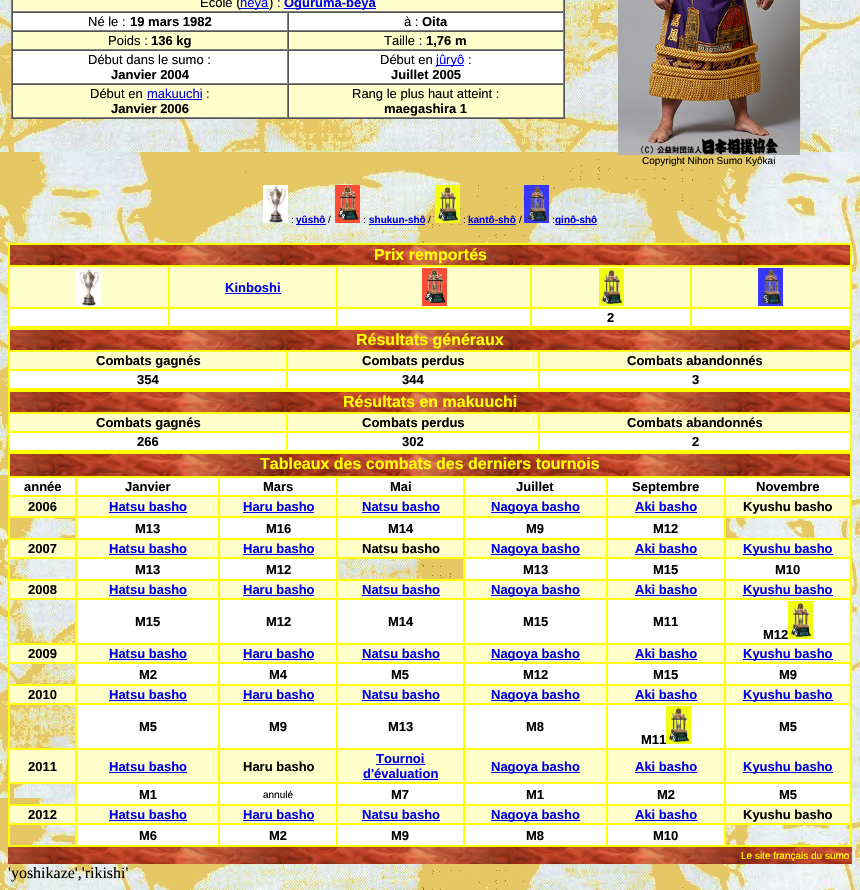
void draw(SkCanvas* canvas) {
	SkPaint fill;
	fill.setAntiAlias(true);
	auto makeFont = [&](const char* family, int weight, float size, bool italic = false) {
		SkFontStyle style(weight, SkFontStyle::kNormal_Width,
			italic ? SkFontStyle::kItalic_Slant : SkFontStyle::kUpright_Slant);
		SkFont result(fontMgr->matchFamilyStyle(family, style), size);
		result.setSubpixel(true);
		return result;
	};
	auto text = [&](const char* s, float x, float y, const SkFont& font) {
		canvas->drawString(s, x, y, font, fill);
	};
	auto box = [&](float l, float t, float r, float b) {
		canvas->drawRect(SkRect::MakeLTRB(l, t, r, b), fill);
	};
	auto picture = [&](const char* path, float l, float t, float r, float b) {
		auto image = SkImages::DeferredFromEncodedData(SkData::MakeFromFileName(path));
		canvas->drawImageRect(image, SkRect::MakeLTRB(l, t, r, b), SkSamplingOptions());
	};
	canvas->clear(0xFFFFFFFF);
	picture("image0.png", 0, 0, 860, 890);
	fill.setColor(0xFF555555);
	box(564, 0, 565, 119);
	box(11, 118, 565, 119);
	fill.setColor(0xFF808080);
	box(11, 0, 12, 119);
	fill.setColor(0xFFFFFFCC);
	box(13, 0, 563, 11);
	fill.setColor(0xFF808080);
	box(563, 0, 564, 12);
	box(12, 11, 564, 12);
	fill.setColor(0xFF555555);
	box(12, 0, 13, 12);
	fill.setColor(0xFF0000EE);
	box(284, 8, 376, 9);
	fill.setColor(0xFFFFFFFF);
	box(13, 13, 287, 30);
	fill.setColor(0xFF555555);
	box(12, 12, 564, 13);
	fill.setColor(0xFF808080);
	box(287, 12, 288, 31);
	box(12, 30, 288, 31);
	fill.setColor(0xFF555555);
	box(12, 12, 13, 31);
	fill.setColor(0xFFFFFFFF);
	box(289, 13, 563, 30);
	fill.setColor(0xFF808080);
	box(563, 12, 564, 31);
	box(288, 30, 564, 31);
	fill.setColor(0xFF555555);
	box(288, 12, 289, 31);
	fill.setColor(0xFFFFFFCC);
	box(13, 32, 287, 49);
	fill.setColor(0xFF555555);
	box(12, 31, 564, 32);
	fill.setColor(0xFF808080);
	box(287, 31, 288, 50);
	box(12, 49, 288, 50);
	fill.setColor(0xFF555555);
	box(12, 31, 13, 50);
	fill.setColor(0xFFFFFFCC);
	box(289, 32, 563, 49);
	fill.setColor(0xFF808080);
	box(563, 31, 564, 50);
	box(288, 49, 564, 50);
	fill.setColor(0xFF555555);
	box(288, 31, 289, 50);
	fill.setColor(0xFFFFFFFF);
	box(13, 51, 287, 83);
	fill.setColor(0xFF555555);
	box(12, 50, 564, 51);
	fill.setColor(0xFF808080);
	box(287, 50, 288, 84);
	box(12, 83, 288, 84);
	fill.setColor(0xFF555555);
	box(12, 50, 13, 84);
	fill.setColor(0xFFFFFFFF);
	box(289, 51, 563, 83);
	fill.setColor(0xFF808080);
	box(563, 50, 564, 84);
	box(288, 83, 564, 84);
	fill.setColor(0xFF555555);
	box(288, 50, 289, 84);
	fill.setColor(0xFF0000EE);
	box(436, 65, 464, 66);
	fill.setColor(0xFFFFFFCC);
	box(13, 85, 287, 117);
	fill.setColor(0xFF555555);
	box(12, 84, 564, 85);
	fill.setColor(0xFF808080);
	box(287, 84, 288, 118);
	box(12, 117, 288, 118);
	fill.setColor(0xFF555555);
	box(12, 84, 13, 118);
	fill.setColor(0xFF0000EE);
	box(147, 99, 202, 100);
	fill.setColor(0xFFFFFFCC);
	box(289, 85, 563, 117);
	fill.setColor(0xFF808080);
	box(563, 84, 564, 118);
	box(288, 117, 564, 118);
	fill.setColor(0xFF555555);
	box(288, 84, 289, 118);
	picture("image1.png", 618, 0, 800, 155);
	picture("image2.png", 263, 185, 288, 223);
	fill.setColor(0xFF0000EE);
	box(296, 224, 326, 225);
	picture("image3.png", 335, 185, 360, 223);
	box(369, 224, 425, 225);
	picture("image4.png", 435, 185, 460, 223);
	box(468, 224, 516, 225);
	picture("image5.png", 524, 185, 549, 223);
	box(555, 224, 597, 225);
	fill.setStyle(SkPaint::kStroke_Style);
	fill.setStrokeWidth(1);
	fill.setColor(0xFFFFFF00);
	canvas->drawRect(SkRect::MakeLTRB(8.5f, 243.5f, 851.5f, 327.5f), fill);
	picture("image6.png", 10, 245, 850, 265);
	canvas->drawRect(SkRect::MakeLTRB(9.5f, 244.5f, 850.5f, 265.5f), fill);
	fill.setStyle(SkPaint::kFill_Style);
	fill.setColor(0xFFFFFFCC);
	box(10, 267, 850, 307);
	fill.setStyle(SkPaint::kStroke_Style);
	fill.setColor(0xFFFFFF00);
	canvas->drawRect(SkRect::MakeLTRB(9.5f, 266.5f, 168.5f, 307.5f), fill);
	picture("image7.png", 76, 268, 101, 306);
	canvas->drawRect(SkRect::MakeLTRB(169.5f, 266.5f, 336.5f, 307.5f), fill);
	fill.setStyle(SkPaint::kFill_Style);
	fill.setColor(0xFF0000EE);
	box(225, 293, 281, 294);
	fill.setStyle(SkPaint::kStroke_Style);
	fill.setColor(0xFFFFFF00);
	canvas->drawRect(SkRect::MakeLTRB(337.5f, 266.5f, 530.5f, 307.5f), fill);
	picture("image3.png", 422, 268, 447, 306);
	canvas->drawRect(SkRect::MakeLTRB(531.5f, 266.5f, 690.5f, 307.5f), fill);
	picture("image4.png", 599, 268, 624, 306);
	canvas->drawRect(SkRect::MakeLTRB(691.5f, 266.5f, 850.5f, 307.5f), fill);
	picture("image5.png", 758, 268, 783, 306);
	fill.setStyle(SkPaint::kFill_Style);
	fill.setColor(0xFFFFFFFF);
	box(10, 309, 850, 326);
	fill.setStyle(SkPaint::kStroke_Style);
	fill.setColor(0xFFFFFF00);
	canvas->drawRect(SkRect::MakeLTRB(9.5f, 308.5f, 168.5f, 326.5f), fill);
	canvas->drawRect(SkRect::MakeLTRB(169.5f, 308.5f, 336.5f, 326.5f), fill);
	canvas->drawRect(SkRect::MakeLTRB(337.5f, 308.5f, 530.5f, 326.5f), fill);
	canvas->drawRect(SkRect::MakeLTRB(531.5f, 308.5f, 690.5f, 326.5f), fill);
	canvas->drawRect(SkRect::MakeLTRB(691.5f, 308.5f, 850.5f, 326.5f), fill);
	canvas->drawRect(SkRect::MakeLTRB(8.5f, 328.5f, 851.5f, 389.5f), fill);
	picture("image6.png", 10, 330, 850, 350);
	canvas->drawRect(SkRect::MakeLTRB(9.5f, 329.5f, 850.5f, 350.5f), fill);
	fill.setStyle(SkPaint::kFill_Style);
	fill.setColor(0xFFFFFFCC);
	box(10, 352, 850, 369);
	fill.setStyle(SkPaint::kStroke_Style);
	fill.setColor(0xFFFFFF00);
	canvas->drawRect(SkRect::MakeLTRB(9.5f, 351.5f, 286.5f, 369.5f), fill);
	canvas->drawRect(SkRect::MakeLTRB(287.5f, 351.5f, 538.5f, 369.5f), fill);
	canvas->drawRect(SkRect::MakeLTRB(539.5f, 351.5f, 850.5f, 369.5f), fill);
	fill.setStyle(SkPaint::kFill_Style);
	fill.setColor(0xFFFFFFFF);
	box(10, 371, 850, 388);
	fill.setStyle(SkPaint::kStroke_Style);
	fill.setColor(0xFFFFFF00);
	canvas->drawRect(SkRect::MakeLTRB(9.5f, 370.5f, 286.5f, 388.5f), fill);
	canvas->drawRect(SkRect::MakeLTRB(287.5f, 370.5f, 538.5f, 388.5f), fill);
	canvas->drawRect(SkRect::MakeLTRB(539.5f, 370.5f, 850.5f, 388.5f), fill);
	canvas->drawRect(SkRect::MakeLTRB(8.5f, 390.5f, 851.5f, 451.5f), fill);
	picture("image6.png", 10, 392, 850, 412);
	canvas->drawRect(SkRect::MakeLTRB(9.5f, 391.5f, 850.5f, 412.5f), fill);
	fill.setStyle(SkPaint::kFill_Style);
	fill.setColor(0xFFFFFFCC);
	box(10, 414, 850, 431);
	fill.setStyle(SkPaint::kStroke_Style);
	fill.setColor(0xFFFFFF00);
	canvas->drawRect(SkRect::MakeLTRB(9.5f, 413.5f, 286.5f, 431.5f), fill);
	canvas->drawRect(SkRect::MakeLTRB(287.5f, 413.5f, 538.5f, 431.5f), fill);
	canvas->drawRect(SkRect::MakeLTRB(539.5f, 413.5f, 850.5f, 431.5f), fill);
	fill.setStyle(SkPaint::kFill_Style);
	fill.setColor(0xFFFFFFFF);
	box(10, 433, 850, 450);
	fill.setStyle(SkPaint::kStroke_Style);
	fill.setColor(0xFFFFFF00);
	canvas->drawRect(SkRect::MakeLTRB(9.5f, 432.5f, 286.5f, 450.5f), fill);
	canvas->drawRect(SkRect::MakeLTRB(287.5f, 432.5f, 538.5f, 450.5f), fill);
	canvas->drawRect(SkRect::MakeLTRB(539.5f, 432.5f, 850.5f, 450.5f), fill);
	canvas->drawRect(SkRect::MakeLTRB(8.5f, 452.5f, 851.5f, 846.5f), fill);
	picture("image8.png", 10, 454, 850, 476);
	canvas->drawRect(SkRect::MakeLTRB(9.5f, 453.5f, 850.5f, 476.5f), fill);
	fill.setStyle(SkPaint::kFill_Style);
	fill.setColor(0xFFFFFFFF);
	canvas->drawRect(SkRect::MakeLTRB(9.5f, 477.5f, 75.5f, 495.5f), fill);
	fill.setStyle(SkPaint::kStroke_Style);
	fill.setColor(0xFFFFFF00);
	canvas->drawRect(SkRect::MakeLTRB(9.5f, 477.5f, 75.5f, 495.5f), fill);
	fill.setStyle(SkPaint::kFill_Style);
	fill.setColor(0xFFFFFFFF);
	canvas->drawRect(SkRect::MakeLTRB(76.5f, 477.5f, 218.5f, 495.5f), fill);
	fill.setStyle(SkPaint::kStroke_Style);
	fill.setColor(0xFFFFFF00);
	canvas->drawRect(SkRect::MakeLTRB(76.5f, 477.5f, 218.5f, 495.5f), fill);
	fill.setStyle(SkPaint::kFill_Style);
	fill.setColor(0xFFFFFFFF);
	canvas->drawRect(SkRect::MakeLTRB(219.5f, 477.5f, 336.5f, 495.5f), fill);
	fill.setStyle(SkPaint::kStroke_Style);
	fill.setColor(0xFFFFFF00);
	canvas->drawRect(SkRect::MakeLTRB(219.5f, 477.5f, 336.5f, 495.5f), fill);
	fill.setStyle(SkPaint::kFill_Style);
	fill.setColor(0xFFFFFFFF);
	canvas->drawRect(SkRect::MakeLTRB(337.5f, 477.5f, 463.5f, 495.5f), fill);
	fill.setStyle(SkPaint::kStroke_Style);
	fill.setColor(0xFFFFFF00);
	canvas->drawRect(SkRect::MakeLTRB(337.5f, 477.5f, 463.5f, 495.5f), fill);
	fill.setStyle(SkPaint::kFill_Style);
	fill.setColor(0xFFFFFFFF);
	canvas->drawRect(SkRect::MakeLTRB(464.5f, 477.5f, 606.5f, 495.5f), fill);
	fill.setStyle(SkPaint::kStroke_Style);
	fill.setColor(0xFFFFFF00);
	canvas->drawRect(SkRect::MakeLTRB(464.5f, 477.5f, 606.5f, 495.5f), fill);
	fill.setStyle(SkPaint::kFill_Style);
	fill.setColor(0xFFFFFFFF);
	canvas->drawRect(SkRect::MakeLTRB(607.5f, 477.5f, 724.5f, 495.5f), fill);
	fill.setStyle(SkPaint::kStroke_Style);
	fill.setColor(0xFFFFFF00);
	canvas->drawRect(SkRect::MakeLTRB(607.5f, 477.5f, 724.5f, 495.5f), fill);
	fill.setStyle(SkPaint::kFill_Style);
	fill.setColor(0xFFFFFFFF);
	canvas->drawRect(SkRect::MakeLTRB(725.5f, 477.5f, 850.5f, 495.5f), fill);
	fill.setStyle(SkPaint::kStroke_Style);
	fill.setColor(0xFFFFFF00);
	canvas->drawRect(SkRect::MakeLTRB(725.5f, 477.5f, 850.5f, 495.5f), fill);
	fill.setStyle(SkPaint::kFill_Style);
	fill.setColor(0xFFFFFFCC);
	canvas->drawRect(SkRect::MakeLTRB(9.5f, 496.5f, 75.5f, 516.5f), fill);
	fill.setStyle(SkPaint::kStroke_Style);
	fill.setColor(0xFFFFFF00);
	canvas->drawRect(SkRect::MakeLTRB(9.5f, 496.5f, 75.5f, 516.5f), fill);
	fill.setStyle(SkPaint::kFill_Style);
	fill.setColor(0xFFFFFFCC);
	canvas->drawRect(SkRect::MakeLTRB(76.5f, 496.5f, 218.5f, 516.5f), fill);
	fill.setStyle(SkPaint::kStroke_Style);
	fill.setColor(0xFFFFFF00);
	canvas->drawRect(SkRect::MakeLTRB(76.5f, 496.5f, 218.5f, 516.5f), fill);
	fill.setStyle(SkPaint::kFill_Style);
	fill.setColor(0xFF0000EE);
	box(109, 512, 187, 513);
	fill.setColor(0xFFFFFFCC);
	canvas->drawRect(SkRect::MakeLTRB(219.5f, 496.5f, 336.5f, 516.5f), fill);
	fill.setStyle(SkPaint::kStroke_Style);
	fill.setColor(0xFFFFFF00);
	canvas->drawRect(SkRect::MakeLTRB(219.5f, 496.5f, 336.5f, 516.5f), fill);
	fill.setStyle(SkPaint::kFill_Style);
	fill.setColor(0xFF0000EE);
	box(243, 512, 314, 513);
	fill.setColor(0xFFFFFFCC);
	canvas->drawRect(SkRect::MakeLTRB(337.5f, 496.5f, 463.5f, 516.5f), fill);
	fill.setStyle(SkPaint::kStroke_Style);
	fill.setColor(0xFFFFFF00);
	canvas->drawRect(SkRect::MakeLTRB(337.5f, 496.5f, 463.5f, 516.5f), fill);
	fill.setStyle(SkPaint::kFill_Style);
	fill.setColor(0xFF0000EE);
	box(362, 512, 440, 513);
	fill.setColor(0xFFFFFFCC);
	canvas->drawRect(SkRect::MakeLTRB(464.5f, 496.5f, 606.5f, 516.5f), fill);
	fill.setStyle(SkPaint::kStroke_Style);
	fill.setColor(0xFFFFFF00);
	canvas->drawRect(SkRect::MakeLTRB(464.5f, 496.5f, 606.5f, 516.5f), fill);
	fill.setStyle(SkPaint::kFill_Style);
	fill.setColor(0xFF0000EE);
	box(491, 512, 580, 513);
	fill.setColor(0xFFFFFFCC);
	canvas->drawRect(SkRect::MakeLTRB(607.5f, 496.5f, 724.5f, 516.5f), fill);
	fill.setStyle(SkPaint::kStroke_Style);
	fill.setColor(0xFFFFFF00);
	canvas->drawRect(SkRect::MakeLTRB(607.5f, 496.5f, 724.5f, 516.5f), fill);
	fill.setStyle(SkPaint::kFill_Style);
	fill.setColor(0xFF0000EE);
	box(635, 512, 697, 513);
	fill.setColor(0xFFFFFFCC);
	canvas->drawRect(SkRect::MakeLTRB(725.5f, 496.5f, 850.5f, 516.5f), fill);
	fill.setStyle(SkPaint::kStroke_Style);
	fill.setColor(0xFFFFFF00);
	canvas->drawRect(SkRect::MakeLTRB(725.5f, 496.5f, 850.5f, 516.5f), fill);
	canvas->drawRect(SkRect::MakeLTRB(9.5f, 517.5f, 75.5f, 538.5f), fill);
	fill.setStyle(SkPaint::kFill_Style);
	fill.setColor(0xFFFFFFFF);
	canvas->drawRect(SkRect::MakeLTRB(76.5f, 517.5f, 218.5f, 538.5f), fill);
	fill.setStyle(SkPaint::kStroke_Style);
	fill.setColor(0xFFFFFF00);
	canvas->drawRect(SkRect::MakeLTRB(76.5f, 517.5f, 218.5f, 538.5f), fill);
	fill.setStyle(SkPaint::kFill_Style);
	fill.setColor(0xFFFFFFFF);
	canvas->drawRect(SkRect::MakeLTRB(219.5f, 517.5f, 336.5f, 538.5f), fill);
	fill.setStyle(SkPaint::kStroke_Style);
	fill.setColor(0xFFFFFF00);
	canvas->drawRect(SkRect::MakeLTRB(219.5f, 517.5f, 336.5f, 538.5f), fill);
	fill.setStyle(SkPaint::kFill_Style);
	fill.setColor(0xFFFFFFFF);
	canvas->drawRect(SkRect::MakeLTRB(337.5f, 517.5f, 463.5f, 538.5f), fill);
	fill.setStyle(SkPaint::kStroke_Style);
	fill.setColor(0xFFFFFF00);
	canvas->drawRect(SkRect::MakeLTRB(337.5f, 517.5f, 463.5f, 538.5f), fill);
	fill.setStyle(SkPaint::kFill_Style);
	fill.setColor(0xFFFFFFFF);
	canvas->drawRect(SkRect::MakeLTRB(464.5f, 517.5f, 606.5f, 538.5f), fill);
	fill.setStyle(SkPaint::kStroke_Style);
	fill.setColor(0xFFFFFF00);
	canvas->drawRect(SkRect::MakeLTRB(464.5f, 517.5f, 606.5f, 538.5f), fill);
	fill.setStyle(SkPaint::kFill_Style);
	fill.setColor(0xFFFFFFFF);
	canvas->drawRect(SkRect::MakeLTRB(607.5f, 517.5f, 724.5f, 538.5f), fill);
	fill.setStyle(SkPaint::kStroke_Style);
	fill.setColor(0xFFFFFF00);
	canvas->drawRect(SkRect::MakeLTRB(607.5f, 517.5f, 724.5f, 538.5f), fill);
	canvas->drawRect(SkRect::MakeLTRB(725.5f, 517.5f, 850.5f, 538.5f), fill);
	fill.setStyle(SkPaint::kFill_Style);
	fill.setColor(0xFFFFFFCC);
	canvas->drawRect(SkRect::MakeLTRB(9.5f, 539.5f, 75.5f, 557.5f), fill);
	fill.setStyle(SkPaint::kStroke_Style);
	fill.setColor(0xFFFFFF00);
	canvas->drawRect(SkRect::MakeLTRB(9.5f, 539.5f, 75.5f, 557.5f), fill);
	fill.setStyle(SkPaint::kFill_Style);
	fill.setColor(0xFFFFFFCC);
	canvas->drawRect(SkRect::MakeLTRB(76.5f, 539.5f, 218.5f, 557.5f), fill);
	fill.setStyle(SkPaint::kStroke_Style);
	fill.setColor(0xFFFFFF00);
	canvas->drawRect(SkRect::MakeLTRB(76.5f, 539.5f, 218.5f, 557.5f), fill);
	fill.setStyle(SkPaint::kFill_Style);
	fill.setColor(0xFF0000EE);
	box(109, 554, 187, 555);
	fill.setColor(0xFFFFFFCC);
	canvas->drawRect(SkRect::MakeLTRB(219.5f, 539.5f, 336.5f, 557.5f), fill);
	fill.setStyle(SkPaint::kStroke_Style);
	fill.setColor(0xFFFFFF00);
	canvas->drawRect(SkRect::MakeLTRB(219.5f, 539.5f, 336.5f, 557.5f), fill);
	fill.setStyle(SkPaint::kFill_Style);
	fill.setColor(0xFF0000EE);
	box(243, 554, 314, 555);
	fill.setColor(0xFFFFFFCC);
	canvas->drawRect(SkRect::MakeLTRB(337.5f, 539.5f, 463.5f, 557.5f), fill);
	fill.setStyle(SkPaint::kStroke_Style);
	fill.setColor(0xFFFFFF00);
	canvas->drawRect(SkRect::MakeLTRB(337.5f, 539.5f, 463.5f, 557.5f), fill);
	fill.setStyle(SkPaint::kFill_Style);
	fill.setColor(0xFFFFFFCC);
	canvas->drawRect(SkRect::MakeLTRB(464.5f, 539.5f, 606.5f, 557.5f), fill);
	fill.setStyle(SkPaint::kStroke_Style);
	fill.setColor(0xFFFFFF00);
	canvas->drawRect(SkRect::MakeLTRB(464.5f, 539.5f, 606.5f, 557.5f), fill);
	fill.setStyle(SkPaint::kFill_Style);
	fill.setColor(0xFF0000EE);
	box(491, 554, 580, 555);
	fill.setColor(0xFFFFFFCC);
	canvas->drawRect(SkRect::MakeLTRB(607.5f, 539.5f, 724.5f, 557.5f), fill);
	fill.setStyle(SkPaint::kStroke_Style);
	fill.setColor(0xFFFFFF00);
	canvas->drawRect(SkRect::MakeLTRB(607.5f, 539.5f, 724.5f, 557.5f), fill);
	fill.setStyle(SkPaint::kFill_Style);
	fill.setColor(0xFF0000EE);
	box(635, 554, 697, 555);
	fill.setColor(0xFFFFFFCC);
	canvas->drawRect(SkRect::MakeLTRB(725.5f, 539.5f, 850.5f, 557.5f), fill);
	fill.setStyle(SkPaint::kStroke_Style);
	fill.setColor(0xFFFFFF00);
	canvas->drawRect(SkRect::MakeLTRB(725.5f, 539.5f, 850.5f, 557.5f), fill);
	fill.setStyle(SkPaint::kFill_Style);
	fill.setColor(0xFF0000EE);
	box(743, 554, 833, 555);
	fill.setStyle(SkPaint::kStroke_Style);
	fill.setColor(0xFFFFFF00);
	canvas->drawRect(SkRect::MakeLTRB(9.5f, 558.5f, 75.5f, 579.5f), fill);
	fill.setStyle(SkPaint::kFill_Style);
	fill.setColor(0xFFFFFFFF);
	canvas->drawRect(SkRect::MakeLTRB(76.5f, 558.5f, 218.5f, 579.5f), fill);
	fill.setStyle(SkPaint::kStroke_Style);
	fill.setColor(0xFFFFFF00);
	canvas->drawRect(SkRect::MakeLTRB(76.5f, 558.5f, 218.5f, 579.5f), fill);
	fill.setStyle(SkPaint::kFill_Style);
	fill.setColor(0xFFFFFFFF);
	canvas->drawRect(SkRect::MakeLTRB(219.5f, 558.5f, 336.5f, 579.5f), fill);
	fill.setStyle(SkPaint::kStroke_Style);
	fill.setColor(0xFFFFFF00);
	canvas->drawRect(SkRect::MakeLTRB(219.5f, 558.5f, 336.5f, 579.5f), fill);
	canvas->drawRect(SkRect::MakeLTRB(337.5f, 558.5f, 463.5f, 579.5f), fill);
	fill.setStyle(SkPaint::kFill_Style);
	fill.setColor(0xFFFFFFFF);
	canvas->drawRect(SkRect::MakeLTRB(464.5f, 558.5f, 606.5f, 579.5f), fill);
	fill.setStyle(SkPaint::kStroke_Style);
	fill.setColor(0xFFFFFF00);
	canvas->drawRect(SkRect::MakeLTRB(464.5f, 558.5f, 606.5f, 579.5f), fill);
	fill.setStyle(SkPaint::kFill_Style);
	fill.setColor(0xFFFFFFFF);
	canvas->drawRect(SkRect::MakeLTRB(607.5f, 558.5f, 724.5f, 579.5f), fill);
	fill.setStyle(SkPaint::kStroke_Style);
	fill.setColor(0xFFFFFF00);
	canvas->drawRect(SkRect::MakeLTRB(607.5f, 558.5f, 724.5f, 579.5f), fill);
	fill.setStyle(SkPaint::kFill_Style);
	fill.setColor(0xFFFFFFFF);
	canvas->drawRect(SkRect::MakeLTRB(725.5f, 558.5f, 850.5f, 579.5f), fill);
	fill.setStyle(SkPaint::kStroke_Style);
	fill.setColor(0xFFFFFF00);
	canvas->drawRect(SkRect::MakeLTRB(725.5f, 558.5f, 850.5f, 579.5f), fill);
	fill.setStyle(SkPaint::kFill_Style);
	fill.setColor(0xFFFFFFCC);
	canvas->drawRect(SkRect::MakeLTRB(9.5f, 580.5f, 75.5f, 598.5f), fill);
	fill.setStyle(SkPaint::kStroke_Style);
	fill.setColor(0xFFFFFF00);
	canvas->drawRect(SkRect::MakeLTRB(9.5f, 580.5f, 75.5f, 598.5f), fill);
	fill.setStyle(SkPaint::kFill_Style);
	fill.setColor(0xFFFFFFCC);
	canvas->drawRect(SkRect::MakeLTRB(76.5f, 580.5f, 218.5f, 598.5f), fill);
	fill.setStyle(SkPaint::kStroke_Style);
	fill.setColor(0xFFFFFF00);
	canvas->drawRect(SkRect::MakeLTRB(76.5f, 580.5f, 218.5f, 598.5f), fill);
	fill.setStyle(SkPaint::kFill_Style);
	fill.setColor(0xFF0000EE);
	box(109, 595, 187, 596);
	fill.setColor(0xFFFFFFCC);
	canvas->drawRect(SkRect::MakeLTRB(219.5f, 580.5f, 336.5f, 598.5f), fill);
	fill.setStyle(SkPaint::kStroke_Style);
	fill.setColor(0xFFFFFF00);
	canvas->drawRect(SkRect::MakeLTRB(219.5f, 580.5f, 336.5f, 598.5f), fill);
	fill.setStyle(SkPaint::kFill_Style);
	fill.setColor(0xFF0000EE);
	box(243, 595, 314, 596);
	fill.setColor(0xFFFFFFCC);
	canvas->drawRect(SkRect::MakeLTRB(337.5f, 580.5f, 463.5f, 598.5f), fill);
	fill.setStyle(SkPaint::kStroke_Style);
	fill.setColor(0xFFFFFF00);
	canvas->drawRect(SkRect::MakeLTRB(337.5f, 580.5f, 463.5f, 598.5f), fill);
	fill.setStyle(SkPaint::kFill_Style);
	fill.setColor(0xFF0000EE);
	box(362, 595, 440, 596);
	fill.setColor(0xFFFFFFCC);
	canvas->drawRect(SkRect::MakeLTRB(464.5f, 580.5f, 606.5f, 598.5f), fill);
	fill.setStyle(SkPaint::kStroke_Style);
	fill.setColor(0xFFFFFF00);
	canvas->drawRect(SkRect::MakeLTRB(464.5f, 580.5f, 606.5f, 598.5f), fill);
	fill.setStyle(SkPaint::kFill_Style);
	fill.setColor(0xFF0000EE);
	box(491, 595, 580, 596);
	fill.setColor(0xFFFFFFCC);
	canvas->drawRect(SkRect::MakeLTRB(607.5f, 580.5f, 724.5f, 598.5f), fill);
	fill.setStyle(SkPaint::kStroke_Style);
	fill.setColor(0xFFFFFF00);
	canvas->drawRect(SkRect::MakeLTRB(607.5f, 580.5f, 724.5f, 598.5f), fill);
	fill.setStyle(SkPaint::kFill_Style);
	fill.setColor(0xFF0000EE);
	box(635, 595, 697, 596);
	fill.setColor(0xFFFFFFCC);
	canvas->drawRect(SkRect::MakeLTRB(725.5f, 580.5f, 850.5f, 598.5f), fill);
	fill.setStyle(SkPaint::kStroke_Style);
	fill.setColor(0xFFFFFF00);
	canvas->drawRect(SkRect::MakeLTRB(725.5f, 580.5f, 850.5f, 598.5f), fill);
	fill.setStyle(SkPaint::kFill_Style);
	fill.setColor(0xFF0000EE);
	box(743, 595, 833, 596);
	fill.setStyle(SkPaint::kStroke_Style);
	fill.setColor(0xFFFFFF00);
	canvas->drawRect(SkRect::MakeLTRB(9.5f, 599.5f, 75.5f, 643.5f), fill);
	fill.setStyle(SkPaint::kFill_Style);
	fill.setColor(0xFFFFFFFF);
	canvas->drawRect(SkRect::MakeLTRB(76.5f, 599.5f, 218.5f, 643.5f), fill);
	fill.setStyle(SkPaint::kStroke_Style);
	fill.setColor(0xFFFFFF00);
	canvas->drawRect(SkRect::MakeLTRB(76.5f, 599.5f, 218.5f, 643.5f), fill);
	fill.setStyle(SkPaint::kFill_Style);
	fill.setColor(0xFFFFFFFF);
	canvas->drawRect(SkRect::MakeLTRB(219.5f, 599.5f, 336.5f, 643.5f), fill);
	fill.setStyle(SkPaint::kStroke_Style);
	fill.setColor(0xFFFFFF00);
	canvas->drawRect(SkRect::MakeLTRB(219.5f, 599.5f, 336.5f, 643.5f), fill);
	fill.setStyle(SkPaint::kFill_Style);
	fill.setColor(0xFFFFFFFF);
	canvas->drawRect(SkRect::MakeLTRB(337.5f, 599.5f, 463.5f, 643.5f), fill);
	fill.setStyle(SkPaint::kStroke_Style);
	fill.setColor(0xFFFFFF00);
	canvas->drawRect(SkRect::MakeLTRB(337.5f, 599.5f, 463.5f, 643.5f), fill);
	fill.setStyle(SkPaint::kFill_Style);
	fill.setColor(0xFFFFFFFF);
	canvas->drawRect(SkRect::MakeLTRB(464.5f, 599.5f, 606.5f, 643.5f), fill);
	fill.setStyle(SkPaint::kStroke_Style);
	fill.setColor(0xFFFFFF00);
	canvas->drawRect(SkRect::MakeLTRB(464.5f, 599.5f, 606.5f, 643.5f), fill);
	fill.setStyle(SkPaint::kFill_Style);
	fill.setColor(0xFFFFFFFF);
	canvas->drawRect(SkRect::MakeLTRB(607.5f, 599.5f, 724.5f, 643.5f), fill);
	fill.setStyle(SkPaint::kStroke_Style);
	fill.setColor(0xFFFFFF00);
	canvas->drawRect(SkRect::MakeLTRB(607.5f, 599.5f, 724.5f, 643.5f), fill);
	fill.setStyle(SkPaint::kFill_Style);
	fill.setColor(0xFFFFFFFF);
	canvas->drawRect(SkRect::MakeLTRB(725.5f, 599.5f, 850.5f, 643.5f), fill);
	fill.setStyle(SkPaint::kStroke_Style);
	fill.setColor(0xFFFFFF00);
	canvas->drawRect(SkRect::MakeLTRB(725.5f, 599.5f, 850.5f, 643.5f), fill);
	picture("image4.png", 788, 601, 813, 639);
	fill.setStyle(SkPaint::kFill_Style);
	fill.setColor(0xFFFFFFCC);
	canvas->drawRect(SkRect::MakeLTRB(9.5f, 644.5f, 75.5f, 662.5f), fill);
	fill.setStyle(SkPaint::kStroke_Style);
	fill.setColor(0xFFFFFF00);
	canvas->drawRect(SkRect::MakeLTRB(9.5f, 644.5f, 75.5f, 662.5f), fill);
	fill.setStyle(SkPaint::kFill_Style);
	fill.setColor(0xFFFFFFCC);
	canvas->drawRect(SkRect::MakeLTRB(76.5f, 644.5f, 218.5f, 662.5f), fill);
	fill.setStyle(SkPaint::kStroke_Style);
	fill.setColor(0xFFFFFF00);
	canvas->drawRect(SkRect::MakeLTRB(76.5f, 644.5f, 218.5f, 662.5f), fill);
	fill.setStyle(SkPaint::kFill_Style);
	fill.setColor(0xFF0000EE);
	box(109, 659, 187, 660);
	fill.setColor(0xFFFFFFCC);
	canvas->drawRect(SkRect::MakeLTRB(219.5f, 644.5f, 336.5f, 662.5f), fill);
	fill.setStyle(SkPaint::kStroke_Style);
	fill.setColor(0xFFFFFF00);
	canvas->drawRect(SkRect::MakeLTRB(219.5f, 644.5f, 336.5f, 662.5f), fill);
	fill.setStyle(SkPaint::kFill_Style);
	fill.setColor(0xFF0000EE);
	box(243, 659, 314, 660);
	fill.setColor(0xFFFFFFCC);
	canvas->drawRect(SkRect::MakeLTRB(337.5f, 644.5f, 463.5f, 662.5f), fill);
	fill.setStyle(SkPaint::kStroke_Style);
	fill.setColor(0xFFFFFF00);
	canvas->drawRect(SkRect::MakeLTRB(337.5f, 644.5f, 463.5f, 662.5f), fill);
	fill.setStyle(SkPaint::kFill_Style);
	fill.setColor(0xFF0000EE);
	box(362, 659, 440, 660);
	fill.setColor(0xFFFFFFCC);
	canvas->drawRect(SkRect::MakeLTRB(464.5f, 644.5f, 606.5f, 662.5f), fill);
	fill.setStyle(SkPaint::kStroke_Style);
	fill.setColor(0xFFFFFF00);
	canvas->drawRect(SkRect::MakeLTRB(464.5f, 644.5f, 606.5f, 662.5f), fill);
	fill.setStyle(SkPaint::kFill_Style);
	fill.setColor(0xFF0000EE);
	box(491, 659, 580, 660);
	fill.setColor(0xFFFFFFCC);
	canvas->drawRect(SkRect::MakeLTRB(607.5f, 644.5f, 724.5f, 662.5f), fill);
	fill.setStyle(SkPaint::kStroke_Style);
	fill.setColor(0xFFFFFF00);
	canvas->drawRect(SkRect::MakeLTRB(607.5f, 644.5f, 724.5f, 662.5f), fill);
	fill.setStyle(SkPaint::kFill_Style);
	fill.setColor(0xFF0000EE);
	box(635, 659, 697, 660);
	fill.setColor(0xFFFFFFCC);
	canvas->drawRect(SkRect::MakeLTRB(725.5f, 644.5f, 850.5f, 662.5f), fill);
	fill.setStyle(SkPaint::kStroke_Style);
	fill.setColor(0xFFFFFF00);
	canvas->drawRect(SkRect::MakeLTRB(725.5f, 644.5f, 850.5f, 662.5f), fill);
	fill.setStyle(SkPaint::kFill_Style);
	fill.setColor(0xFF0000EE);
	box(743, 659, 833, 660);
	fill.setStyle(SkPaint::kStroke_Style);
	fill.setColor(0xFFFFFF00);
	canvas->drawRect(SkRect::MakeLTRB(9.5f, 663.5f, 75.5f, 684.5f), fill);
	fill.setStyle(SkPaint::kFill_Style);
	fill.setColor(0xFFFFFFFF);
	canvas->drawRect(SkRect::MakeLTRB(76.5f, 663.5f, 218.5f, 684.5f), fill);
	fill.setStyle(SkPaint::kStroke_Style);
	fill.setColor(0xFFFFFF00);
	canvas->drawRect(SkRect::MakeLTRB(76.5f, 663.5f, 218.5f, 684.5f), fill);
	fill.setStyle(SkPaint::kFill_Style);
	fill.setColor(0xFFFFFFFF);
	canvas->drawRect(SkRect::MakeLTRB(219.5f, 663.5f, 336.5f, 684.5f), fill);
	fill.setStyle(SkPaint::kStroke_Style);
	fill.setColor(0xFFFFFF00);
	canvas->drawRect(SkRect::MakeLTRB(219.5f, 663.5f, 336.5f, 684.5f), fill);
	fill.setStyle(SkPaint::kFill_Style);
	fill.setColor(0xFFFFFFFF);
	canvas->drawRect(SkRect::MakeLTRB(337.5f, 663.5f, 463.5f, 684.5f), fill);
	fill.setStyle(SkPaint::kStroke_Style);
	fill.setColor(0xFFFFFF00);
	canvas->drawRect(SkRect::MakeLTRB(337.5f, 663.5f, 463.5f, 684.5f), fill);
	fill.setStyle(SkPaint::kFill_Style);
	fill.setColor(0xFFFFFFFF);
	canvas->drawRect(SkRect::MakeLTRB(464.5f, 663.5f, 606.5f, 684.5f), fill);
	fill.setStyle(SkPaint::kStroke_Style);
	fill.setColor(0xFFFFFF00);
	canvas->drawRect(SkRect::MakeLTRB(464.5f, 663.5f, 606.5f, 684.5f), fill);
	fill.setStyle(SkPaint::kFill_Style);
	fill.setColor(0xFFFFFFFF);
	canvas->drawRect(SkRect::MakeLTRB(607.5f, 663.5f, 724.5f, 684.5f), fill);
	fill.setStyle(SkPaint::kStroke_Style);
	fill.setColor(0xFFFFFF00);
	canvas->drawRect(SkRect::MakeLTRB(607.5f, 663.5f, 724.5f, 684.5f), fill);
	fill.setStyle(SkPaint::kFill_Style);
	fill.setColor(0xFFFFFFFF);
	canvas->drawRect(SkRect::MakeLTRB(725.5f, 663.5f, 850.5f, 684.5f), fill);
	fill.setStyle(SkPaint::kStroke_Style);
	fill.setColor(0xFFFFFF00);
	canvas->drawRect(SkRect::MakeLTRB(725.5f, 663.5f, 850.5f, 684.5f), fill);
	fill.setStyle(SkPaint::kFill_Style);
	fill.setColor(0xFFFFFFCC);
	canvas->drawRect(SkRect::MakeLTRB(9.5f, 685.5f, 75.5f, 703.5f), fill);
	fill.setStyle(SkPaint::kStroke_Style);
	fill.setColor(0xFFFFFF00);
	canvas->drawRect(SkRect::MakeLTRB(9.5f, 685.5f, 75.5f, 703.5f), fill);
	fill.setStyle(SkPaint::kFill_Style);
	fill.setColor(0xFFFFFFCC);
	canvas->drawRect(SkRect::MakeLTRB(76.5f, 685.5f, 218.5f, 703.5f), fill);
	fill.setStyle(SkPaint::kStroke_Style);
	fill.setColor(0xFFFFFF00);
	canvas->drawRect(SkRect::MakeLTRB(76.5f, 685.5f, 218.5f, 703.5f), fill);
	fill.setStyle(SkPaint::kFill_Style);
	fill.setColor(0xFF0000EE);
	box(109, 700, 187, 701);
	fill.setColor(0xFFFFFFCC);
	canvas->drawRect(SkRect::MakeLTRB(219.5f, 685.5f, 336.5f, 703.5f), fill);
	fill.setStyle(SkPaint::kStroke_Style);
	fill.setColor(0xFFFFFF00);
	canvas->drawRect(SkRect::MakeLTRB(219.5f, 685.5f, 336.5f, 703.5f), fill);
	fill.setStyle(SkPaint::kFill_Style);
	fill.setColor(0xFF0000EE);
	box(243, 700, 314, 701);
	fill.setColor(0xFFFFFFCC);
	canvas->drawRect(SkRect::MakeLTRB(337.5f, 685.5f, 463.5f, 703.5f), fill);
	fill.setStyle(SkPaint::kStroke_Style);
	fill.setColor(0xFFFFFF00);
	canvas->drawRect(SkRect::MakeLTRB(337.5f, 685.5f, 463.5f, 703.5f), fill);
	fill.setStyle(SkPaint::kFill_Style);
	fill.setColor(0xFF0000EE);
	box(362, 700, 440, 701);
	fill.setColor(0xFFFFFFCC);
	canvas->drawRect(SkRect::MakeLTRB(464.5f, 685.5f, 606.5f, 703.5f), fill);
	fill.setStyle(SkPaint::kStroke_Style);
	fill.setColor(0xFFFFFF00);
	canvas->drawRect(SkRect::MakeLTRB(464.5f, 685.5f, 606.5f, 703.5f), fill);
	fill.setStyle(SkPaint::kFill_Style);
	fill.setColor(0xFF0000EE);
	box(491, 700, 580, 701);
	fill.setColor(0xFFFFFFCC);
	canvas->drawRect(SkRect::MakeLTRB(607.5f, 685.5f, 724.5f, 703.5f), fill);
	fill.setStyle(SkPaint::kStroke_Style);
	fill.setColor(0xFFFFFF00);
	canvas->drawRect(SkRect::MakeLTRB(607.5f, 685.5f, 724.5f, 703.5f), fill);
	fill.setStyle(SkPaint::kFill_Style);
	fill.setColor(0xFF0000EE);
	box(635, 700, 697, 701);
	fill.setColor(0xFFFFFFCC);
	canvas->drawRect(SkRect::MakeLTRB(725.5f, 685.5f, 850.5f, 703.5f), fill);
	fill.setStyle(SkPaint::kStroke_Style);
	fill.setColor(0xFFFFFF00);
	canvas->drawRect(SkRect::MakeLTRB(725.5f, 685.5f, 850.5f, 703.5f), fill);
	fill.setStyle(SkPaint::kFill_Style);
	fill.setColor(0xFF0000EE);
	box(743, 700, 833, 701);
	fill.setStyle(SkPaint::kStroke_Style);
	fill.setColor(0xFFFFFF00);
	canvas->drawRect(SkRect::MakeLTRB(9.5f, 704.5f, 75.5f, 748.5f), fill);
	fill.setStyle(SkPaint::kFill_Style);
	fill.setColor(0xFFFFFFFF);
	canvas->drawRect(SkRect::MakeLTRB(76.5f, 704.5f, 218.5f, 748.5f), fill);
	fill.setStyle(SkPaint::kStroke_Style);
	fill.setColor(0xFFFFFF00);
	canvas->drawRect(SkRect::MakeLTRB(76.5f, 704.5f, 218.5f, 748.5f), fill);
	fill.setStyle(SkPaint::kFill_Style);
	fill.setColor(0xFFFFFFFF);
	canvas->drawRect(SkRect::MakeLTRB(219.5f, 704.5f, 336.5f, 748.5f), fill);
	fill.setStyle(SkPaint::kStroke_Style);
	fill.setColor(0xFFFFFF00);
	canvas->drawRect(SkRect::MakeLTRB(219.5f, 704.5f, 336.5f, 748.5f), fill);
	fill.setStyle(SkPaint::kFill_Style);
	fill.setColor(0xFFFFFFFF);
	canvas->drawRect(SkRect::MakeLTRB(337.5f, 704.5f, 463.5f, 748.5f), fill);
	fill.setStyle(SkPaint::kStroke_Style);
	fill.setColor(0xFFFFFF00);
	canvas->drawRect(SkRect::MakeLTRB(337.5f, 704.5f, 463.5f, 748.5f), fill);
	fill.setStyle(SkPaint::kFill_Style);
	fill.setColor(0xFFFFFFFF);
	canvas->drawRect(SkRect::MakeLTRB(464.5f, 704.5f, 606.5f, 748.5f), fill);
	fill.setStyle(SkPaint::kStroke_Style);
	fill.setColor(0xFFFFFF00);
	canvas->drawRect(SkRect::MakeLTRB(464.5f, 704.5f, 606.5f, 748.5f), fill);
	fill.setStyle(SkPaint::kFill_Style);
	fill.setColor(0xFFFFFFFF);
	canvas->drawRect(SkRect::MakeLTRB(725.5f, 704.5f, 850.5f, 748.5f), fill);
	fill.setStyle(SkPaint::kStroke_Style);
	fill.setColor(0xFFFFFF00);
	canvas->drawRect(SkRect::MakeLTRB(725.5f, 704.5f, 850.5f, 748.5f), fill);
	fill.setStyle(SkPaint::kFill_Style);
	fill.setColor(0xFFFFFFFF);
	canvas->drawRect(SkRect::MakeLTRB(607.5f, 704.5f, 724.5f, 748.5f), fill);
	fill.setStyle(SkPaint::kStroke_Style);
	fill.setColor(0xFFFFFF00);
	canvas->drawRect(SkRect::MakeLTRB(607.5f, 704.5f, 724.5f, 748.5f), fill);
	picture("image4.png", 666, 706, 691, 744);
	fill.setStyle(SkPaint::kFill_Style);
	fill.setColor(0xFFFFFFCC);
	canvas->drawRect(SkRect::MakeLTRB(9.5f, 749.5f, 75.5f, 782.5f), fill);
	fill.setStyle(SkPaint::kStroke_Style);
	fill.setColor(0xFFFFFF00);
	canvas->drawRect(SkRect::MakeLTRB(9.5f, 749.5f, 75.5f, 782.5f), fill);
	fill.setStyle(SkPaint::kFill_Style);
	fill.setColor(0xFFFFFFCC);
	canvas->drawRect(SkRect::MakeLTRB(76.5f, 749.5f, 218.5f, 782.5f), fill);
	fill.setStyle(SkPaint::kStroke_Style);
	fill.setColor(0xFFFFFF00);
	canvas->drawRect(SkRect::MakeLTRB(76.5f, 749.5f, 218.5f, 782.5f), fill);
	fill.setStyle(SkPaint::kFill_Style);
	fill.setColor(0xFF0000EE);
	box(109, 772, 187, 773);
	fill.setColor(0xFFFFFFCC);
	canvas->drawRect(SkRect::MakeLTRB(219.5f, 749.5f, 336.5f, 782.5f), fill);
	fill.setStyle(SkPaint::kStroke_Style);
	fill.setColor(0xFFFFFF00);
	canvas->drawRect(SkRect::MakeLTRB(219.5f, 749.5f, 336.5f, 782.5f), fill);
	fill.setStyle(SkPaint::kFill_Style);
	fill.setColor(0xFFFFFFCC);
	canvas->drawRect(SkRect::MakeLTRB(337.5f, 749.5f, 463.5f, 782.5f), fill);
	fill.setStyle(SkPaint::kStroke_Style);
	fill.setColor(0xFFFFFF00);
	canvas->drawRect(SkRect::MakeLTRB(337.5f, 749.5f, 463.5f, 782.5f), fill);
	fill.setStyle(SkPaint::kFill_Style);
	fill.setColor(0xFF0000EE);
	box(376, 764, 425, 765);
	box(363, 779, 438, 780);
	fill.setColor(0xFFFFFFCC);
	canvas->drawRect(SkRect::MakeLTRB(464.5f, 749.5f, 606.5f, 782.5f), fill);
	fill.setStyle(SkPaint::kStroke_Style);
	fill.setColor(0xFFFFFF00);
	canvas->drawRect(SkRect::MakeLTRB(464.5f, 749.5f, 606.5f, 782.5f), fill);
	fill.setStyle(SkPaint::kFill_Style);
	fill.setColor(0xFF0000EE);
	box(491, 772, 580, 773);
	fill.setColor(0xFFFFFFCC);
	canvas->drawRect(SkRect::MakeLTRB(607.5f, 749.5f, 724.5f, 782.5f), fill);
	fill.setStyle(SkPaint::kStroke_Style);
	fill.setColor(0xFFFFFF00);
	canvas->drawRect(SkRect::MakeLTRB(607.5f, 749.5f, 724.5f, 782.5f), fill);
	fill.setStyle(SkPaint::kFill_Style);
	fill.setColor(0xFF0000EE);
	box(635, 772, 697, 773);
	fill.setColor(0xFFFFFFCC);
	canvas->drawRect(SkRect::MakeLTRB(725.5f, 749.5f, 850.5f, 782.5f), fill);
	fill.setStyle(SkPaint::kStroke_Style);
	fill.setColor(0xFFFFFF00);
	canvas->drawRect(SkRect::MakeLTRB(725.5f, 749.5f, 850.5f, 782.5f), fill);
	fill.setStyle(SkPaint::kFill_Style);
	fill.setColor(0xFF0000EE);
	box(743, 772, 833, 773);
	fill.setStyle(SkPaint::kStroke_Style);
	fill.setColor(0xFFFFFF00);
	canvas->drawRect(SkRect::MakeLTRB(9.5f, 783.5f, 75.5f, 804.5f), fill);
	fill.setStyle(SkPaint::kFill_Style);
	fill.setColor(0xFFFFFFFF);
	canvas->drawRect(SkRect::MakeLTRB(76.5f, 783.5f, 218.5f, 804.5f), fill);
	fill.setStyle(SkPaint::kStroke_Style);
	fill.setColor(0xFFFFFF00);
	canvas->drawRect(SkRect::MakeLTRB(76.5f, 783.5f, 218.5f, 804.5f), fill);
	fill.setStyle(SkPaint::kFill_Style);
	fill.setColor(0xFFFFFFFF);
	canvas->drawRect(SkRect::MakeLTRB(219.5f, 783.5f, 336.5f, 804.5f), fill);
	fill.setStyle(SkPaint::kStroke_Style);
	fill.setColor(0xFFFFFF00);
	canvas->drawRect(SkRect::MakeLTRB(219.5f, 783.5f, 336.5f, 804.5f), fill);
	fill.setStyle(SkPaint::kFill_Style);
	fill.setColor(0xFFFFFFFF);
	canvas->drawRect(SkRect::MakeLTRB(337.5f, 783.5f, 463.5f, 804.5f), fill);
	fill.setStyle(SkPaint::kStroke_Style);
	fill.setColor(0xFFFFFF00);
	canvas->drawRect(SkRect::MakeLTRB(337.5f, 783.5f, 463.5f, 804.5f), fill);
	fill.setStyle(SkPaint::kFill_Style);
	fill.setColor(0xFFFFFFFF);
	canvas->drawRect(SkRect::MakeLTRB(464.5f, 783.5f, 606.5f, 804.5f), fill);
	fill.setStyle(SkPaint::kStroke_Style);
	fill.setColor(0xFFFFFF00);
	canvas->drawRect(SkRect::MakeLTRB(464.5f, 783.5f, 606.5f, 804.5f), fill);
	fill.setStyle(SkPaint::kFill_Style);
	fill.setColor(0xFFFFFFFF);
	canvas->drawRect(SkRect::MakeLTRB(607.5f, 783.5f, 724.5f, 804.5f), fill);
	fill.setStyle(SkPaint::kStroke_Style);
	fill.setColor(0xFFFFFF00);
	canvas->drawRect(SkRect::MakeLTRB(607.5f, 783.5f, 724.5f, 804.5f), fill);
	fill.setStyle(SkPaint::kFill_Style);
	fill.setColor(0xFFFFFFFF);
	canvas->drawRect(SkRect::MakeLTRB(725.5f, 783.5f, 850.5f, 804.5f), fill);
	fill.setStyle(SkPaint::kStroke_Style);
	fill.setColor(0xFFFFFF00);
	canvas->drawRect(SkRect::MakeLTRB(725.5f, 783.5f, 850.5f, 804.5f), fill);
	fill.setStyle(SkPaint::kFill_Style);
	fill.setColor(0xFFFFFFCC);
	canvas->drawRect(SkRect::MakeLTRB(9.5f, 805.5f, 75.5f, 823.5f), fill);
	fill.setStyle(SkPaint::kStroke_Style);
	fill.setColor(0xFFFFFF00);
	canvas->drawRect(SkRect::MakeLTRB(9.5f, 805.5f, 75.5f, 823.5f), fill);
	fill.setStyle(SkPaint::kFill_Style);
	fill.setColor(0xFFFFFFCC);
	canvas->drawRect(SkRect::MakeLTRB(76.5f, 805.5f, 218.5f, 823.5f), fill);
	fill.setStyle(SkPaint::kStroke_Style);
	fill.setColor(0xFFFFFF00);
	canvas->drawRect(SkRect::MakeLTRB(76.5f, 805.5f, 218.5f, 823.5f), fill);
	fill.setStyle(SkPaint::kFill_Style);
	fill.setColor(0xFF0000EE);
	box(109, 820, 187, 821);
	fill.setColor(0xFFFFFFCC);
	canvas->drawRect(SkRect::MakeLTRB(219.5f, 805.5f, 336.5f, 823.5f), fill);
	fill.setStyle(SkPaint::kStroke_Style);
	fill.setColor(0xFFFFFF00);
	canvas->drawRect(SkRect::MakeLTRB(219.5f, 805.5f, 336.5f, 823.5f), fill);
	fill.setStyle(SkPaint::kFill_Style);
	fill.setColor(0xFF0000EE);
	box(243, 820, 314, 821);
	fill.setColor(0xFFFFFFCC);
	canvas->drawRect(SkRect::MakeLTRB(337.5f, 805.5f, 463.5f, 823.5f), fill);
	fill.setStyle(SkPaint::kStroke_Style);
	fill.setColor(0xFFFFFF00);
	canvas->drawRect(SkRect::MakeLTRB(337.5f, 805.5f, 463.5f, 823.5f), fill);
	fill.setStyle(SkPaint::kFill_Style);
	fill.setColor(0xFF0000EE);
	box(362, 820, 440, 821);
	fill.setColor(0xFFFFFFCC);
	canvas->drawRect(SkRect::MakeLTRB(464.5f, 805.5f, 606.5f, 823.5f), fill);
	fill.setStyle(SkPaint::kStroke_Style);
	fill.setColor(0xFFFFFF00);
	canvas->drawRect(SkRect::MakeLTRB(464.5f, 805.5f, 606.5f, 823.5f), fill);
	fill.setStyle(SkPaint::kFill_Style);
	fill.setColor(0xFF0000EE);
	box(491, 820, 580, 821);
	fill.setColor(0xFFFFFFCC);
	canvas->drawRect(SkRect::MakeLTRB(607.5f, 805.5f, 724.5f, 823.5f), fill);
	fill.setStyle(SkPaint::kStroke_Style);
	fill.setColor(0xFFFFFF00);
	canvas->drawRect(SkRect::MakeLTRB(607.5f, 805.5f, 724.5f, 823.5f), fill);
	fill.setStyle(SkPaint::kFill_Style);
	fill.setColor(0xFF0000EE);
	box(635, 820, 697, 821);
	fill.setColor(0xFFFFFFCC);
	canvas->drawRect(SkRect::MakeLTRB(725.5f, 805.5f, 850.5f, 823.5f), fill);
	fill.setStyle(SkPaint::kStroke_Style);
	fill.setColor(0xFFFFFF00);
	canvas->drawRect(SkRect::MakeLTRB(725.5f, 805.5f, 850.5f, 823.5f), fill);
	canvas->drawRect(SkRect::MakeLTRB(9.5f, 824.5f, 75.5f, 845.5f), fill);
	fill.setStyle(SkPaint::kFill_Style);
	fill.setColor(0xFFFFFFFF);
	canvas->drawRect(SkRect::MakeLTRB(76.5f, 824.5f, 218.5f, 845.5f), fill);
	fill.setStyle(SkPaint::kStroke_Style);
	fill.setColor(0xFFFFFF00);
	canvas->drawRect(SkRect::MakeLTRB(76.5f, 824.5f, 218.5f, 845.5f), fill);
	fill.setStyle(SkPaint::kFill_Style);
	fill.setColor(0xFFFFFFFF);
	canvas->drawRect(SkRect::MakeLTRB(219.5f, 824.5f, 336.5f, 845.5f), fill);
	fill.setStyle(SkPaint::kStroke_Style);
	fill.setColor(0xFFFFFF00);
	canvas->drawRect(SkRect::MakeLTRB(219.5f, 824.5f, 336.5f, 845.5f), fill);
	fill.setStyle(SkPaint::kFill_Style);
	fill.setColor(0xFFFFFFFF);
	canvas->drawRect(SkRect::MakeLTRB(337.5f, 824.5f, 463.5f, 845.5f), fill);
	fill.setStyle(SkPaint::kStroke_Style);
	fill.setColor(0xFFFFFF00);
	canvas->drawRect(SkRect::MakeLTRB(337.5f, 824.5f, 463.5f, 845.5f), fill);
	fill.setStyle(SkPaint::kFill_Style);
	fill.setColor(0xFFFFFFFF);
	canvas->drawRect(SkRect::MakeLTRB(464.5f, 824.5f, 606.5f, 845.5f), fill);
	fill.setStyle(SkPaint::kStroke_Style);
	fill.setColor(0xFFFFFF00);
	canvas->drawRect(SkRect::MakeLTRB(464.5f, 824.5f, 606.5f, 845.5f), fill);
	fill.setStyle(SkPaint::kFill_Style);
	fill.setColor(0xFFFFFFFF);
	canvas->drawRect(SkRect::MakeLTRB(607.5f, 824.5f, 724.5f, 845.5f), fill);
	fill.setStyle(SkPaint::kStroke_Style);
	fill.setColor(0xFFFFFF00);
	canvas->drawRect(SkRect::MakeLTRB(607.5f, 824.5f, 724.5f, 845.5f), fill);
	canvas->drawRect(SkRect::MakeLTRB(725.5f, 824.5f, 850.5f, 845.5f), fill);
	picture("image9.png", 8, 847, 852, 864);
	auto font1 = makeFont("Liberation Sans", 400, 13);
	fill.setStyle(SkPaint::kFill_Style);
	fill.setColor(0xFF000000);
	text("Ecole (", 200, 7, font1);
	fill.setColor(0xFF0000EE);
	box(240, 8, 269, 9);
	text("heya", 240, 7, font1);
	fill.setColor(0xFF000000);
	text(") :", 269, 7, font1);
	auto font2 = makeFont("Liberation Sans", 700, 13);
	fill.setColor(0xFF0000EE);
	text("Oguruma-beya", 284, 7, font2);
	fill.setColor(0xFF000000);
	text("Né le :", 88, 26, font1);
	text("19 mars 1982", 130, 26, font2);
	text("à :", 404, 26, font1);
	text("Oita", 422, 26, font2);
	text("Poids :", 108, 45, font1);
	text("136 kg", 151, 45, font2);
	text("Taille :", 384, 45, font1);
	text("1,76 m", 426, 45, font2);
	text("Début dans le sumo :", 88, 64, font1);
	text("Janvier 2004", 111, 79, font2);
	text("Début en", 380, 64, font1);
	fill.setColor(0xFF0000EE);
	text("jûryô", 436, 64, font1);
	fill.setColor(0xFF000000);
	text(":", 468, 64, font1);
	text("Juillet 2005", 391, 79, font2);
	text("Début en", 90, 98, font1);
	fill.setColor(0xFF0000EE);
	text("makuuchi", 147, 98, font1);
	fill.setColor(0xFF000000);
	text(":", 206, 98, font1);
	text("Janvier 2006", 111, 113, font2);
	text("Rang le plus haut atteint :", 352, 98, font1);
	text("maegashira 1", 384, 113, font2);
	auto font3 = makeFont("Liberation Sans", 400, 10);
	text("Copyright Nihon Sumo Kyôkai", 642, 164, font3);
	text(":", 291, 223, font3);
	auto font4 = makeFont("Liberation Sans", 700, 10);
	fill.setColor(0xFF0000EE);
	text("yûshô", 296, 223, font4);
	fill.setColor(0xFF000000);
	text("/", 328, 223, font3);
	text(":", 363, 223, font3);
	fill.setColor(0xFF0000EE);
	text("shukun-shô", 369, 223, font4);
	fill.setColor(0xFF000000);
	text("/", 428, 223, font3);
	text(":", 463, 223, font3);
	fill.setColor(0xFF0000EE);
	text("kantô-shô", 468, 223, font4);
	fill.setColor(0xFF000000);
	text("/", 519, 223, font3);
	text(":", 552, 223, font3);
	fill.setColor(0xFF0000EE);
	text("ginô-shô", 555, 223, font4);
	auto font5 = makeFont("Liberation Sans", 700, 16);
	fill.setColor(0xFFFFFF00);
	text("Prix remportés", 374, 260, font5);
	fill.setColor(0xFF0000EE);
	text("Kinboshi", 225, 292, font2);
	fill.setColor(0xFF000000);
	text("2", 607, 322, font2);
	fill.setColor(0xFFFFFF00);
	text("Résultats généraux", 356, 345, font5);
	fill.setColor(0xFF000000);
	text("Combats gagnés", 96, 365, font2);
	text("Combats perdus", 362, 365, font2);
	text("Combats abandonnés", 627, 365, font2);
	text("354", 137, 384, font2);
	text("344", 402, 384, font2);
	text("3", 692, 384, font2);
	fill.setColor(0xFFFFFF00);
	text("Résultats en makuuchi", 343, 407, font5);
	fill.setColor(0xFF000000);
	text("Combats gagnés", 96, 427, font2);
	text("Combats perdus", 362, 427, font2);
	text("Combats abandonnés", 627, 427, font2);
	text("266", 137, 446, font2);
	text("302", 402, 446, font2);
	text("2", 692, 446, font2);
	fill.setColor(0xFFFFFF00);
	text("Tableaux des combats des derniers tournois", 260, 469, font5);
	fill.setColor(0xFF000000);
	text("année", 24, 491, font2);
	text("Janvier", 125, 491, font2);
	text("Mars", 263, 491, font2);
	text("Mai", 390, 491, font2);
	text("Juillet", 516, 491, font2);
	text("Septembre", 632, 491, font2);
	text("Novembre", 756, 491, font2);
	text("2006", 28, 511, font2);
	fill.setColor(0xFF0000EE);
	text("Hatsu basho", 109, 511, font2);
	text("Haru basho", 243, 511, font2);
	text("Natsu basho", 362, 511, font2);
	text("Nagoya basho", 491, 511, font2);
	text("Aki basho", 635, 511, font2);
	fill.setColor(0xFF000000);
	text("Kyushu basho", 743, 511, font2);
	text("M13", 135, 533, font2);
	text("M16", 266, 533, font2);
	text("M14", 388, 533, font2);
	text("M9", 526, 533, font2);
	text("M12", 653, 533, font2);
	text("2007", 28, 553, font2);
	fill.setColor(0xFF0000EE);
	text("Hatsu basho", 109, 553, font2);
	text("Haru basho", 243, 553, font2);
	fill.setColor(0xFF000000);
	text("Natsu basho", 362, 553, font2);
	fill.setColor(0xFF0000EE);
	text("Nagoya basho", 491, 553, font2);
	text("Aki basho", 635, 553, font2);
	text("Kyushu basho", 743, 553, font2);
	fill.setColor(0xFF000000);
	text("M13", 135, 574, font2);
	text("M12", 266, 574, font2);
	text("M13", 523, 574, font2);
	text("M15", 653, 574, font2);
	text("M10", 775, 574, font2);
	text("2008", 28, 594, font2);
	fill.setColor(0xFF0000EE);
	text("Hatsu basho", 109, 594, font2);
	text("Haru basho", 243, 594, font2);
	text("Natsu basho", 362, 594, font2);
	text("Nagoya basho", 491, 594, font2);
	text("Aki basho", 635, 594, font2);
	text("Kyushu basho", 743, 594, font2);
	fill.setColor(0xFF000000);
	text("M15", 135, 626, font2);
	text("M12", 266, 626, font2);
	text("M14", 388, 626, font2);
	text("M15", 523, 626, font2);
	text("M11", 653, 626, font2);
	text("M12", 763, 639, font2);
	text("2009", 28, 658, font2);
	fill.setColor(0xFF0000EE);
	text("Hatsu basho", 109, 658, font2);
	text("Haru basho", 243, 658, font2);
	text("Natsu basho", 362, 658, font2);
	text("Nagoya basho", 491, 658, font2);
	text("Aki basho", 635, 658, font2);
	text("Kyushu basho", 743, 658, font2);
	fill.setColor(0xFF000000);
	text("M2", 139, 679, font2);
	text("M4", 269, 679, font2);
	text("M5", 391, 679, font2);
	text("M12", 523, 679, font2);
	text("M15", 653, 679, font2);
	text("M9", 779, 679, font2);
	text("2010", 28, 699, font2);
	fill.setColor(0xFF0000EE);
	text("Hatsu basho", 109, 699, font2);
	text("Haru basho", 243, 699, font2);
	text("Natsu basho", 362, 699, font2);
	text("Nagoya basho", 491, 699, font2);
	text("Aki basho", 635, 699, font2);
	text("Kyushu basho", 743, 699, font2);
	fill.setColor(0xFF000000);
	text("M5", 139, 731, font2);
	text("M9", 269, 731, font2);
	text("M13", 388, 731, font2);
	text("M8", 526, 731, font2);
	text("M5", 779, 731, font2);
	text("M11", 641, 744, font2);
	text("2011", 28, 771, font2);
	fill.setColor(0xFF0000EE);
	text("Hatsu basho", 109, 771, font2);
	fill.setColor(0xFF000000);
	text("Haru basho", 243, 771, font2);
	fill.setColor(0xFF0000EE);
	text("Tournoi", 376, 763, font2);
	text("d'évaluation", 363, 778, font2);
	text("Nagoya basho", 491, 771, font2);
	text("Aki basho", 635, 771, font2);
	text("Kyushu basho", 743, 771, font2);
	fill.setColor(0xFF000000);
	text("M1", 139, 799, font2);
	text("annulé", 263, 798, font3);
	text("M7", 391, 799, font2);
	text("M1", 526, 799, font2);
	text("M2", 657, 799, font2);
	text("M5", 779, 799, font2);
	text("2012", 28, 819, font2);
	fill.setColor(0xFF0000EE);
	text("Hatsu basho", 109, 819, font2);
	text("Haru basho", 243, 819, font2);
	text("Natsu basho", 362, 819, font2);
	text("Nagoya basho", 491, 819, font2);
	text("Aki basho", 635, 819, font2);
	fill.setColor(0xFF000000);
	text("Kyushu basho", 743, 819, font2);
	text("M6", 139, 840, font2);
	text("M2", 269, 840, font2);
	text("M9", 391, 840, font2);
	text("M8", 526, 840, font2);
	text("M10", 653, 840, font2);
	fill.setColor(0xFFFFFF00);
	text("Le site français du sumo", 741, 859, font3);
	auto font6 = makeFont("Liberation Serif", 400, 16);
	fill.setColor(0xFF000000);
	text("'yoshikaze','rikishi'", 8, 878, font6);
}
